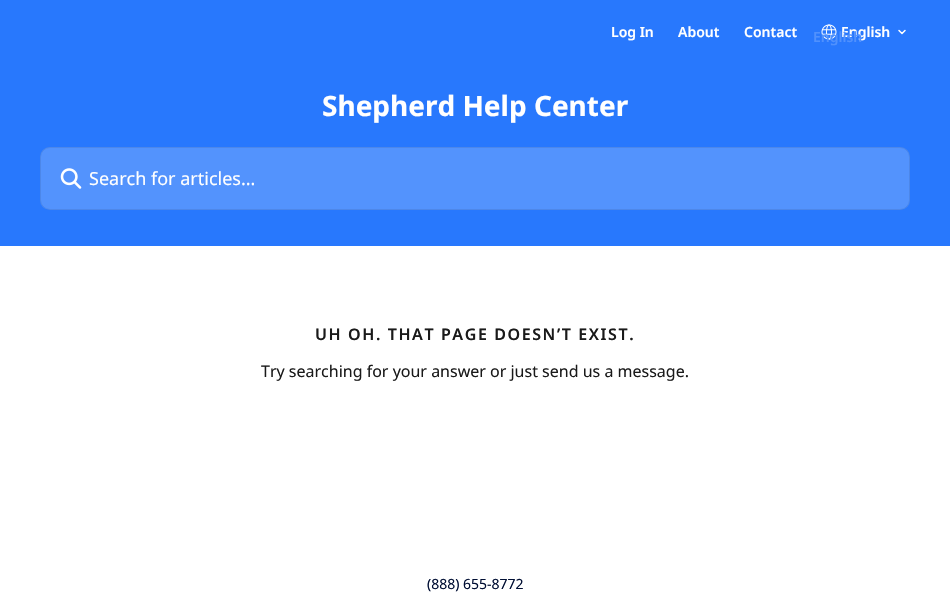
void draw(SkCanvas* canvas) {
	SkPaint fill;
	fill.setAntiAlias(true);
	auto makeFont = [&](const char* family, int weight, float size, bool italic = false) {
		SkFontStyle style(weight, SkFontStyle::kNormal_Width,
			italic ? SkFontStyle::kItalic_Slant : SkFontStyle::kUpright_Slant);
		SkFont result(fontMgr->matchFamilyStyle(family, style), size);
		result.setSubpixel(true);
		return result;
	};
	auto text = [&](const char* s, float x, float y, const SkFont& font) {
		canvas->drawString(s, x, y, font, fill);
	};
	auto spacedText = [&](const char* s, float x, float y, const SkFont& font, const SkPaint& ink, float letter, float word) {
		std::vector<SkGlyphID> glyphs(font.countText(s, strlen(s), SkTextEncoding::kUTF8));
		std::vector<float> xs(glyphs.size());
		font.textToGlyphs(s, strlen(s), SkTextEncoding::kUTF8, glyphs);
		font.getXPos(glyphs, xs, x);
		float extra = 0;
		for (size_t i = 0; i < glyphs.size(); i++) {
			xs[i] += extra;
			extra += letter + word * (glyphs[i] == font.unicharToGlyph(' '));
		}
		canvas->drawTextBlob(SkTextBlob::MakeFromPosHGlyphs(glyphs, xs, y, font), 0, 0, ink);
	};
	auto box = [&](float l, float t, float r, float b) {
		canvas->drawRect(SkRect::MakeLTRB(l, t, r, b), fill);
	};
	auto roundBox = [&](float l, float t, float r, float b, float radius) {
		canvas->drawRoundRect(SkRect::MakeLTRB(l, t, r, b), radius, radius, fill);
	};
	auto picture = [&](const char* path, float l, float t, float r, float b) {
		auto image = SkImages::DeferredFromEncodedData(SkData::MakeFromFileName(path));
		canvas->drawImageRect(image, SkRect::MakeLTRB(l, t, r, b), SkSamplingOptions());
	};
	canvas->clear(0xFFFFFFFF);
	fill.setColor(0xFF2878FD);
	box(0, 0, 950, 246);
	picture("image0.png", 821, 24, 837, 40);
	fill.setStyle(SkPaint::kStroke_Style);
	fill.setStrokeWidth(1.5f);
	fill.setStrokeCap(SkPaint::kRound_Cap);
	fill.setStrokeJoin(SkPaint::kRound_Join);
	fill.setColor(0xFFFFFFFF);
	canvas->drawPath(SkPathBuilder().moveTo(899, 30.5f).lineTo(902, 33.5f).lineTo(905, 30.5f).detach(), fill);
	fill.setStyle(SkPaint::kFill_Style);
	fill.setColor(0x33FFFFFF);
	roundBox(40, 147, 910, 210, 10);
	fill.setStyle(SkPaint::kStroke_Style);
	fill.setStrokeWidth(1);
	fill.setStrokeCap(SkPaint::kButt_Cap);
	fill.setStrokeJoin(SkPaint::kMiter_Join);
	fill.setColor(0x14000000);
	canvas->drawRoundRect(SkRect::MakeLTRB(40.5f, 147.5f, 909.5f, 209.5f), 9.5f, 9.5f, fill);
	picture("image1.png", 60, 168, 82, 189);
	auto font1 = makeFont("Noto Sans", 600, 14);
	fill.setStyle(SkPaint::kFill_Style);
	fill.setColor(0xFFFFFFFF);
	text("Log In", 611, 37, font1);
	text("About", 678, 37, font1);
	text("Contact", 744, 37, font1);
	text("English", 841, 37, font1);
	fill.setColor(0xFF5091FD);
	text("English", 813, 42, font1);
	auto font2 = makeFont("Noto Sans", 700, 28);
	fill.setColor(0xFFFFFFFF);
	text("Shepherd Help Center", 322, 116, font2);
	auto font3 = makeFont("Noto Sans", 400, 18);
	text("Search for articles...", 89, 185, font3);
	auto font4 = makeFont("Noto Sans", 600, 16);
	fill.setColor(0xFF1A1A1A);
	spacedText("UH OH. THAT PAGE DOESN’T EXIST.", 315, 340, font4, fill, 1.6f, 0);
	auto font5 = makeFont("Noto Sans", 400, 16);
	text("Try searching for your answer or just send us a message.", 261, 377, font5);
	auto font6 = makeFont("Noto Sans", 400, 14);
	fill.setColor(0xFF000E33);
	text("(888) 655-8772", 427, 589, font6);
}
